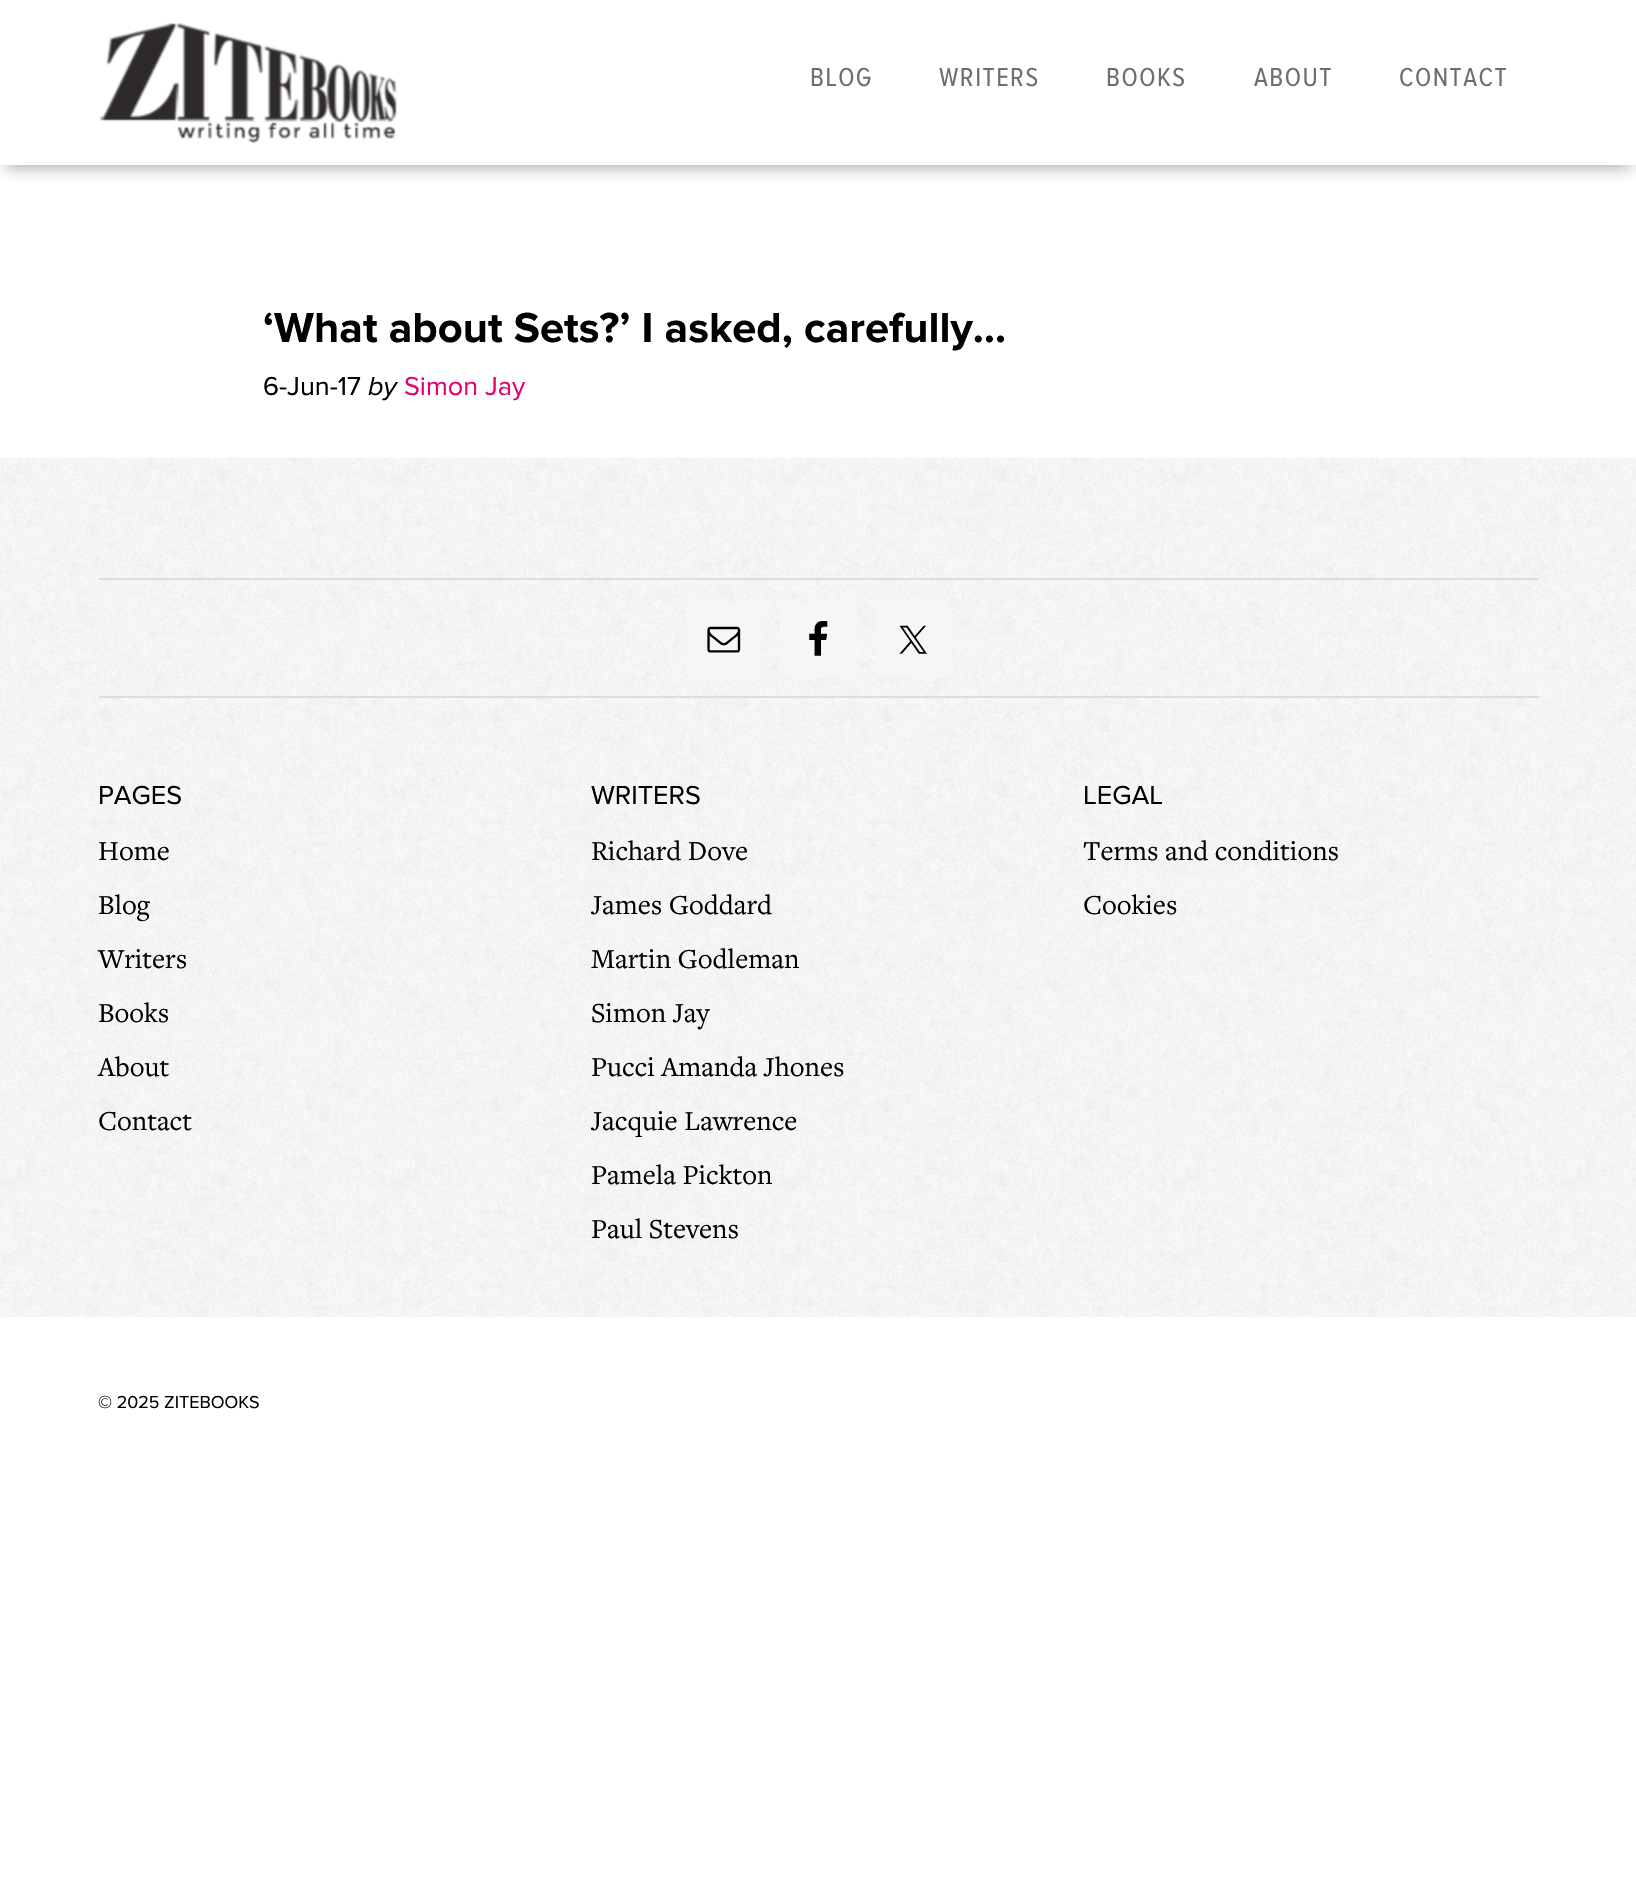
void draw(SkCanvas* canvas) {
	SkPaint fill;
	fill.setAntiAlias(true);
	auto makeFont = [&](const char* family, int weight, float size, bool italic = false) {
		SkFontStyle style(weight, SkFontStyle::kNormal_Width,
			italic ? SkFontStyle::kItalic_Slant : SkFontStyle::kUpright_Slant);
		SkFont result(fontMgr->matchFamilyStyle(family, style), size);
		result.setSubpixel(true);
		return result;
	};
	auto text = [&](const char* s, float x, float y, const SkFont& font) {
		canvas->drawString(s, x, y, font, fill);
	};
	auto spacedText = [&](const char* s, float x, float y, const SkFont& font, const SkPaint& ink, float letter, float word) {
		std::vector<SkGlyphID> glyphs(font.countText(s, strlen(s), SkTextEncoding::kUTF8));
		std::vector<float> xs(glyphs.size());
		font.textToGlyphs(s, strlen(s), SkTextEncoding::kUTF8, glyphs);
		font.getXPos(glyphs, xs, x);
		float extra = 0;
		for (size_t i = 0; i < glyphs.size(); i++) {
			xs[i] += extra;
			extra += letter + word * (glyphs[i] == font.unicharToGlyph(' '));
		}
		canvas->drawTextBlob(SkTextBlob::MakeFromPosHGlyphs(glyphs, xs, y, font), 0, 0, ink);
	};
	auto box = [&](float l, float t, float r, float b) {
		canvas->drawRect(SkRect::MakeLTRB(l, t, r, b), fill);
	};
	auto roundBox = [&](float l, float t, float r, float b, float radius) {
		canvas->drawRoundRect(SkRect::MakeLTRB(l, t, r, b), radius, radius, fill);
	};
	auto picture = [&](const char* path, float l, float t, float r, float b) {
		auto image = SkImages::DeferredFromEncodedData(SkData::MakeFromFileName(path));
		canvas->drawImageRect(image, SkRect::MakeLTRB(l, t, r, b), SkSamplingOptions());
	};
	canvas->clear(0xFFFFFFFF);
	canvas->save();
	canvas->clipRect(SkRect::MakeLTRB(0, 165, 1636, 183));
	fill.setColor(0xFFAEAEAE);
	fill.setMaskFilter(SkMaskFilter::MakeBlur(kNormal_SkBlurStyle, 7.5f));
	canvas->drawRect(SkRect::MakeLTRB(6, 15, 1631, 168), fill);
	fill.setMaskFilter(nullptr);
	canvas->restore();
	picture("image0.png", 99, 22, 397, 143);
	fill.setColor(0xFFF8F8F8);
	box(0, 458, 1636, 1317);
	picture("image1.png", 0, 457, 1636, 1317);
	fill.setColor(0xFFDDDDDD);
	box(99, 578, 1539, 580);
	box(99, 696, 1539, 698);
	fill.setColor(0xFFF6F6F6);
	roundBox(686, 602, 762, 678, 8);
	picture("image2.png", 707, 626, 741, 653);
	roundBox(780, 602, 857, 678, 8);
	picture("image3.png", 809, 621, 828, 656);
	roundBox(875, 602, 951, 678, 8);
	picture("image4.png", 899, 625, 927, 654);
	auto font1 = makeFont("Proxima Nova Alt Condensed", 400, 27);
	fill.setColor(0xFF6E6E6E);
	spacedText("BLOG", 810, 86, font1, fill, 1.5f, 0);
	spacedText("WRITERS", 939, 86, font1, fill, 1.5f, 0);
	spacedText("BOOKS", 1106, 86, font1, fill, 1.5f, 0);
	spacedText("ABOUT", 1254, 86, font1, fill, 1.5f, 0);
	spacedText("CONTACT", 1399, 86, font1, fill, 1.5f, 0);
	auto font2 = makeFont("Proxima Nova", 700, 43.5f);
	fill.setColor(0xFF000000);
	text("‘What about Sets?’ I asked, carefully…", 263, 342, font2);
	auto font3 = makeFont("Proxima Nova", 400, 27);
	text("6-Jun-17", 263, 395, font3);
	auto font4 = makeFont("Proxima Nova", 400, 27, true);
	text("by", 368, 395, font4);
	fill.setColor(0xFFE50272);
	text("Simon Jay", 404, 395, font3);
	fill.setColor(0xFF000000);
	text("PAGES", 98, 804, font3);
	auto font5 = makeFont("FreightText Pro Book", 400, 28.5f);
	text("Home", 98, 860, font5);
	text("Blog", 98, 914, font5);
	text("Writers", 98, 968, font5);
	text("Books", 98, 1022, font5);
	text("About", 98, 1076, font5);
	text("Contact", 98, 1130, font5);
	text("WRITERS", 591, 804, font3);
	text("Richard Dove", 591, 860, font5);
	text("James Goddard", 591, 914, font5);
	text("Martin Godleman", 591, 968, font5);
	text("Simon Jay", 591, 1022, font5);
	text("Pucci Amanda Jhones", 591, 1076, font5);
	text("Jacquie Lawrence", 591, 1130, font5);
	text("Pamela Pickton", 591, 1184, font5);
	text("Paul Stevens", 591, 1238, font5);
	text("LEGAL", 1083, 804, font3);
	text("Terms and conditions", 1083, 860, font5);
	text("Cookies", 1083, 914, font5);
	auto font6 = makeFont("Proxima Nova", 400, 18);
	text("© 2025 ZITEBOOKS", 98, 1408, font6);
}
